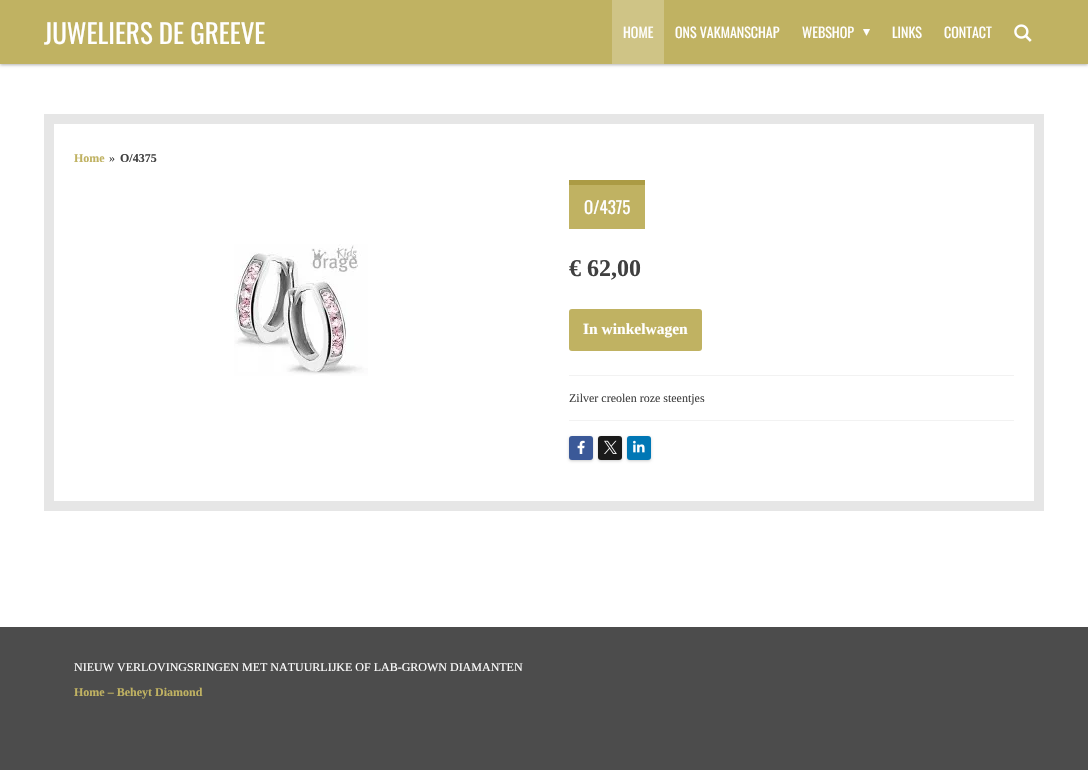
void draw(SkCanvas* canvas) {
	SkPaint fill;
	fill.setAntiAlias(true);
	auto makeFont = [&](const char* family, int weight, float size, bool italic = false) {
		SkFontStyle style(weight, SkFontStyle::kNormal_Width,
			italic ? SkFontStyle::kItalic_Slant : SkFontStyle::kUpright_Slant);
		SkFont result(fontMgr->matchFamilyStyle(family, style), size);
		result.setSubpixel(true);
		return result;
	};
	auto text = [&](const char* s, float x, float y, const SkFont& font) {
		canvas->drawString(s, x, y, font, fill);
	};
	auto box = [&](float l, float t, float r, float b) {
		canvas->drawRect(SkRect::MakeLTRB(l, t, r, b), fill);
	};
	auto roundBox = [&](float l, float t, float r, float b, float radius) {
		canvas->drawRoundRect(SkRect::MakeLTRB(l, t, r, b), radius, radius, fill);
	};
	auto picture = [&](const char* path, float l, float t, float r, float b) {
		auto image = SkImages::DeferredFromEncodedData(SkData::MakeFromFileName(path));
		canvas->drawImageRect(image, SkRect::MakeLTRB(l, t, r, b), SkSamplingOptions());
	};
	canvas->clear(0xFFFFFFFF);
	fill.setColor(0x4D000000);
	fill.setMaskFilter(SkMaskFilter::MakeBlur(kNormal_SkBlurStyle, 1.5f));
	canvas->drawRect(SkRect::MakeLTRB(0, 1, 1088, 65), fill);
	fill.setMaskFilter(nullptr);
	fill.setColor(0xFFC0B262);
	box(0, 0, 1088, 64);
	fill.setColor(0xFFCFC486);
	box(612, 0, 664, 64);
	picture("image0.png", 1014, 24, 1032, 42);
	fill.setColor(0xFFE6E6E6);
	box(44, 114, 1044, 511);
	fill.setColor(0xFFFFFFFF);
	box(54, 124, 1034, 501);
	fill.setColor(0xFFC0B262);
	box(569, 185, 645, 229);
	fill.setColor(0xFFAB9B44);
	box(569, 180, 645, 185);
	picture("image1.png", 234, 244, 368, 376);
	fill.setColor(0xFFC0B262);
	roundBox(569, 309, 702, 351, 3);
	fill.setColor(0xFFF2F2F2);
	box(569, 375, 1014, 376);
	box(569, 420, 1014, 421);
	fill.setColor(0x33000000);
	fill.setMaskFilter(SkMaskFilter::MakeBlur(kNormal_SkBlurStyle, 1.5f));
	canvas->drawRoundRect(SkRect::MakeLTRB(569, 437, 593, 461), 3, 3, fill);
	fill.setMaskFilter(nullptr);
	fill.setColor(0xFF3B5998);
	roundBox(569, 436, 593, 460, 3);
	picture("image2.png", 577, 440, 585, 454);
	fill.setColor(0x33000000);
	fill.setMaskFilter(SkMaskFilter::MakeBlur(kNormal_SkBlurStyle, 1.5f));
	canvas->drawRoundRect(SkRect::MakeLTRB(598, 437, 622, 461), 3, 3, fill);
	fill.setMaskFilter(nullptr);
	fill.setColor(0xFF1A1A1A);
	roundBox(598, 436, 622, 460, 3);
	picture("image3.png", 604, 440, 617, 454);
	fill.setColor(0x33000000);
	fill.setMaskFilter(SkMaskFilter::MakeBlur(kNormal_SkBlurStyle, 1.5f));
	canvas->drawRoundRect(SkRect::MakeLTRB(627, 437, 651, 461), 3, 3, fill);
	fill.setMaskFilter(nullptr);
	fill.setColor(0xFF0077B5);
	roundBox(627, 436, 651, 460, 3);
	picture("image4.png", 633, 440, 645, 453);
	fill.setColor(0xFF4C4C4C);
	box(0, 627, 1088, 770);
	auto font1 = makeFont("Oswald", 400, 27);
	fill.setColor(0xFFFFFFFF);
	text("JUWELIERS DE GREEVE", 44, 44, font1);
	auto font2 = makeFont("Oswald", 400, 14);
	text("HOME", 623, 38, font2);
	text("ONS VAKMANSCHAP", 675, 38, font2);
	text("WEBSHOP", 802, 38, font2);
	auto font3 = makeFont("DejaVu Sans", 400, 14);
	text("▾", 863, 36, font3);
	text("LINKS", 892, 38, font2);
	text("CONTACT", 944, 38, font2);
	auto font4 = makeFont("Liberation Serif", 700, 12);
	fill.setColor(0xFFC0B262);
	text("Home", 74, 162, font4);
	auto font5 = makeFont("Liberation Serif", 400, 12);
	fill.setColor(0xFF404040);
	text("»", 109, 162, font5);
	text("O/4375", 120, 162, font4);
	auto font6 = makeFont("Oswald", 400, 17);
	fill.setColor(0xFFFFFFFF);
	text("O/4375", 584, 214, font6);
	auto font7 = makeFont("Liberation Serif", 700, 24);
	fill.setColor(0xFF404040);
	text("€ 62,00", 569, 276, font7);
	auto font8 = makeFont("Liberation Serif", 700, 15.5f);
	fill.setColor(0xFFFFFFFF);
	text("In winkelwagen", 583, 334, font8);
	fill.setColor(0xFF404040);
	text("Zilver creolen roze steentjes", 569, 402, font5);
	fill.setColor(0xFFFFFFFF);
	text("NIEUW VERLOVINGSRINGEN MET NATUURLIJKE OF LAB-GROWN DIAMANTEN", 74, 671, font5);
	fill.setColor(0xFFC0B262);
	text("Home – Beheyt Diamond", 74, 696, font4);
}
